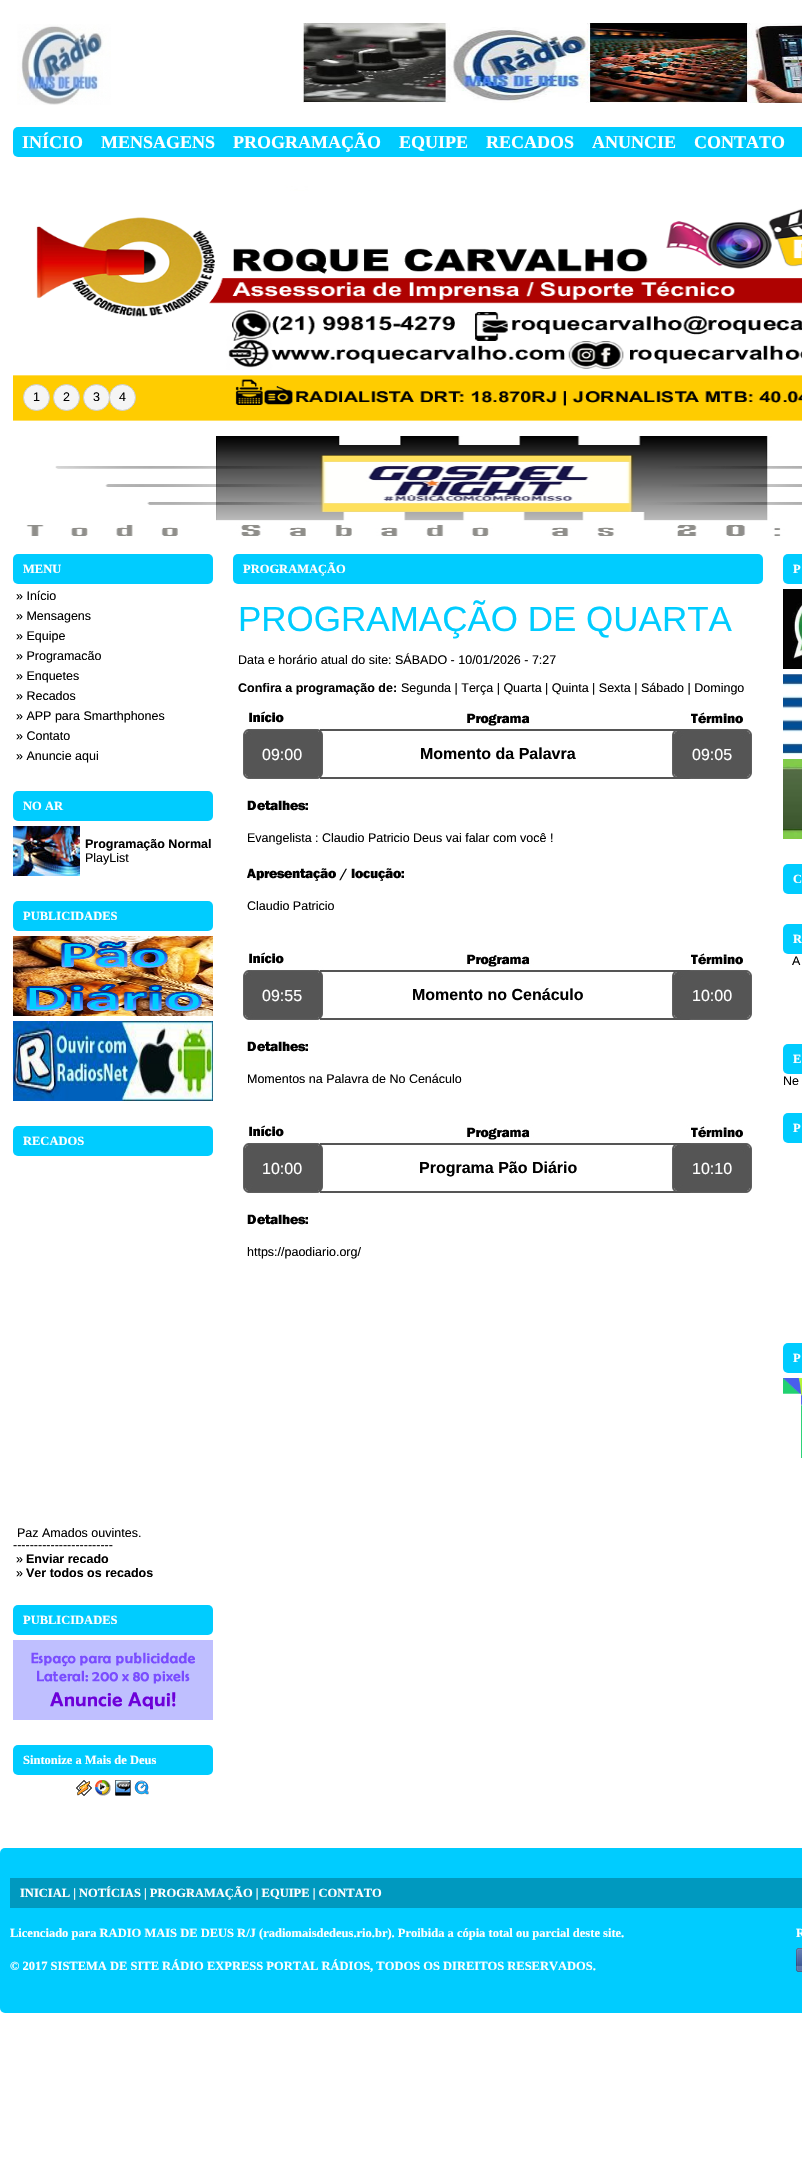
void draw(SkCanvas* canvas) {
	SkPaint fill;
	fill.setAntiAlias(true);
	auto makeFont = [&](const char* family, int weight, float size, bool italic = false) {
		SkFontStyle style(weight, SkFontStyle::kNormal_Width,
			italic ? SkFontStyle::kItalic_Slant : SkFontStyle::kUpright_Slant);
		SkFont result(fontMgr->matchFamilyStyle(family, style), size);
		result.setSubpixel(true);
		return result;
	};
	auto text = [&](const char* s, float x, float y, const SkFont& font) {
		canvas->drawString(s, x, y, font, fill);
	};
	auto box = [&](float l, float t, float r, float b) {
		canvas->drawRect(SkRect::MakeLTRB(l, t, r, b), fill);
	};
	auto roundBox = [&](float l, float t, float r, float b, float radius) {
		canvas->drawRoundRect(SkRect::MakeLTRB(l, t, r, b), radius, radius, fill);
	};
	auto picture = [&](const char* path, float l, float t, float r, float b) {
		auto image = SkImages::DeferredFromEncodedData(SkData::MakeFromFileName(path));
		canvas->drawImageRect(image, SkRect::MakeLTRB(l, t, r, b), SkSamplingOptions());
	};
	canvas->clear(0xFFFFFFFF);
	picture("image0.png", 17, 24, 111, 105);
	picture("image1.png", 303, 23, 802, 103);
	fill.setColor(0xFF00CCFF);
	roundBox(13, 127, 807, 157, 5);
	picture("image2.png", 13, 171, 802, 191);
	picture("image3.png", 13, 191, 802, 421);
	fill.setColor(0xFFF5F5F5);
	canvas->drawCircle(36.5f, 397.5f, 13, fill);
	fill.setStyle(SkPaint::kStroke_Style);
	fill.setStrokeWidth(1);
	fill.setColor(0xFFCCCCCC);
	canvas->drawCircle(36.5f, 397.5f, 13, fill);
	fill.setStyle(SkPaint::kFill_Style);
	fill.setColor(0xFFF5F5F5);
	canvas->drawCircle(66.5f, 397.5f, 13, fill);
	fill.setStyle(SkPaint::kStroke_Style);
	fill.setColor(0xFFCCCCCC);
	canvas->drawCircle(66.5f, 397.5f, 13, fill);
	fill.setStyle(SkPaint::kFill_Style);
	fill.setColor(0xFFF5F5F5);
	canvas->drawCircle(96.5f, 397.5f, 13, fill);
	fill.setStyle(SkPaint::kStroke_Style);
	fill.setColor(0xFFCCCCCC);
	canvas->drawCircle(96.5f, 397.5f, 13, fill);
	fill.setStyle(SkPaint::kFill_Style);
	fill.setColor(0xFFF5F5F5);
	canvas->drawCircle(122.5f, 397.5f, 13, fill);
	fill.setStyle(SkPaint::kStroke_Style);
	fill.setColor(0xFFCCCCCC);
	canvas->drawCircle(122.5f, 397.5f, 13, fill);
	picture("image4.png", 26, 436, 802, 536);
	fill.setStyle(SkPaint::kFill_Style);
	fill.setColor(0xFF00CCFF);
	roundBox(13, 554, 213, 584, 5);
	roundBox(13, 791, 213, 821, 5);
	picture("image5.png", 13, 826, 80, 876);
	roundBox(13, 901, 213, 931, 5);
	picture("image6.png", 13, 936, 213, 1016);
	picture("image7.png", 13, 1021, 213, 1101);
	roundBox(13, 1126, 213, 1156, 5);
	roundBox(13, 1605, 213, 1635, 5);
	picture("image8.png", 13, 1640, 213, 1720);
	roundBox(13, 1745, 213, 1775, 5);
	picture("image9.png", 76, 1780, 92, 1796);
	picture("image10.png", 95, 1780, 111, 1796);
	picture("image11.png", 115, 1780, 131, 1796);
	picture("image12.png", 134, 1780, 149, 1795);
	roundBox(233, 554, 763, 584, 5);
	picture("image13.png", 244, 711, 750, 731);
	picture("image14.png", 243, 731, 323, 740);
	picture("image15.png", 672, 731, 752, 740);
	picture("image16.png", 243, 740, 245, 777);
	fill.setColor(0xFF555555);
	box(245, 740, 320, 770);
	picture("image17.png", 320, 740, 323, 777);
	picture("image18.png", 672, 740, 675, 777);
	box(675, 740, 750, 770);
	picture("image19.png", 750, 740, 752, 777);
	picture("image20.png", 245, 770, 320, 777);
	picture("image21.png", 675, 770, 750, 777);
	picture("image22.png", 245, 777, 750, 779);
	picture("image23.png", 247, 800, 308, 811);
	picture("image24.png", 247, 868, 404, 881);
	picture("image13.png", 244, 952, 750, 972);
	picture("image14.png", 243, 972, 323, 981);
	picture("image15.png", 672, 972, 752, 981);
	picture("image16.png", 243, 981, 245, 1018);
	box(245, 981, 320, 1011);
	picture("image17.png", 320, 981, 323, 1018);
	picture("image18.png", 672, 981, 675, 1018);
	box(675, 981, 750, 1011);
	picture("image19.png", 750, 981, 752, 1018);
	picture("image20.png", 245, 1011, 320, 1018);
	picture("image21.png", 675, 1011, 750, 1018);
	picture("image22.png", 245, 1018, 750, 1020);
	picture("image23.png", 247, 1041, 308, 1052);
	picture("image13.png", 244, 1125, 750, 1145);
	picture("image14.png", 243, 1145, 323, 1154);
	picture("image15.png", 672, 1145, 752, 1154);
	picture("image16.png", 243, 1154, 245, 1191);
	box(245, 1154, 320, 1184);
	picture("image17.png", 320, 1154, 323, 1191);
	picture("image18.png", 672, 1154, 675, 1191);
	box(675, 1154, 750, 1184);
	picture("image19.png", 750, 1154, 752, 1191);
	picture("image20.png", 245, 1184, 320, 1191);
	picture("image21.png", 675, 1184, 750, 1191);
	picture("image22.png", 245, 1191, 750, 1193);
	picture("image23.png", 247, 1214, 308, 1225);
	fill.setColor(0xFF00CCFF);
	roundBox(783, 554, 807, 584, 5);
	picture("image25.png", 783, 589, 802, 669);
	picture("image26.png", 783, 674, 802, 754);
	picture("image27.png", 783, 759, 802, 839);
	roundBox(783, 864, 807, 894, 5);
	roundBox(783, 924, 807, 954, 5);
	roundBox(783, 1044, 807, 1074, 5);
	roundBox(783, 1113, 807, 1143, 5);
	roundBox(783, 1343, 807, 1373, 5);
	picture("image28.png", 783, 1378, 802, 1458);
	roundBox(0, 1848, 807, 2013, 5);
	fill.setColor(0xFF0099BF);
	box(10, 1878, 802, 1908);
	picture("image29.png", 796, 1948, 802, 1972);
	auto font1 = makeFont("Liberation Serif", 700, 18);
	fill.setColor(0xFFFFFFFF);
	text("INÍCIO", 22, 148, font1);
	text("MENSAGENS", 101, 148, font1);
	text("PROGRAMAÇÃO", 233, 148, font1);
	text("EQUIPE", 399, 148, font1);
	text("RECADOS", 486, 148, font1);
	text("ANUNCIE", 592, 148, font1);
	text("CONTATO", 694, 148, font1);
	auto font2 = makeFont("Liberation Sans", 400, 12.5f);
	fill.setColor(0xFF000000);
	text("1", 33, 401, font2);
	text("2", 63, 401, font2);
	text("3", 93, 401, font2);
	text("4", 119, 401, font2);
	auto font3 = makeFont("Liberation Serif", 700, 12.5f);
	fill.setColor(0xFFFFFFFF);
	text("MENU", 23, 573, font3);
	fill.setColor(0xFF000000);
	text("» Início", 16, 600, font2);
	text("» Mensagens", 16, 620, font2);
	text("» Equipe", 16, 640, font2);
	text("» Programacão", 16, 660, font2);
	text("» Enquetes", 16, 680, font2);
	text("» Recados", 16, 700, font2);
	text("» APP para Smarthphones", 16, 720, font2);
	text("» Contato", 16, 740, font2);
	text("» Anuncie aqui", 16, 760, font2);
	fill.setColor(0xFFFFFFFF);
	text("NO AR", 23, 810, font3);
	auto font4 = makeFont("Liberation Sans", 700, 12.5f);
	fill.setColor(0xFF000000);
	text("Programação Normal", 85, 848, font4);
	text("PlayList", 85, 862, font2);
	fill.setColor(0xFFFFFFFF);
	text("PUBLICIDADES", 23, 920, font3);
	text("RECADOS", 23, 1145, font3);
	fill.setColor(0xFF000000);
	text("Paz Amados ouvintes.", 17, 1537, font2);
	text("------------------------", 13, 1549, font2);
	text("»", 16, 1563, font2);
	text("Enviar recado", 26, 1563, font4);
	text("»", 16, 1577, font2);
	text("Ver todos os recados", 26, 1577, font4);
	fill.setColor(0xFFFFFFFF);
	box(54, 1563, 106, 1564);
	text("PUBLICIDADES", 23, 1624, font3);
	text("Sintonize a Mais de Deus", 23, 1764, font3);
	text("PROGRAMAÇÃO", 243, 573, font3);
	auto font5 = makeFont("Liberation Sans", 400, 35);
	fill.setColor(0xFF00CCFF);
	text("PROGRAMAÇÃO DE QUARTA", 238, 631, font5);
	fill.setColor(0xFF000000);
	text("Data e horário atual do site: SÁBADO - 10/01/2026 - 7:27", 238, 664, font2);
	text("Confira a programação de:", 238, 692, font4);
	text("Segunda | Terça | Quarta | Quinta | Sexta | Sábado | Domingo", 401, 692, font2);
	auto font6 = makeFont("Liberation Sans", 700, 16);
	text("Momento da Palavra", 420, 759, font6);
	auto font7 = makeFont("Liberation Sans", 400, 16);
	fill.setColor(0xFFFFFFFF);
	text("09:00", 262, 760, font7);
	text("09:05", 692, 760, font7);
	fill.setColor(0xFF000000);
	text("Evangelista : Claudio Patricio Deus vai falar com você !", 247, 842, font2);
	text("Claudio Patricio", 247, 910, font2);
	text("Momento no Cenáculo", 412, 1000, font6);
	fill.setColor(0xFFFFFFFF);
	text("09:55", 262, 1001, font7);
	text("10:00", 692, 1001, font7);
	fill.setColor(0xFF000000);
	text("Momentos na Palavra de No Cenáculo", 247, 1083, font2);
	text("Programa Pão Diário", 419, 1173, font6);
	fill.setColor(0xFFFFFFFF);
	text("10:00", 262, 1174, font7);
	text("10:10", 692, 1174, font7);
	fill.setColor(0xFF000000);
	text("https://paodiario.org/", 247, 1256, font2);
	fill.setColor(0xFFFFFFFF);
	text("P", 793, 573, font3);
	text("C", 793, 883, font3);
	text("R", 793, 943, font3);
	fill.setColor(0xFF000000);
	text("A", 792, 965, font2);
	fill.setColor(0xFFFFFFFF);
	text("E", 793, 1063, font3);
	fill.setColor(0xFF000000);
	text("Ne", 783, 1085, font2);
	fill.setColor(0xFFFFFFFF);
	text("P", 793, 1132, font3);
	text("P", 793, 1362, font3);
	text("INICIAL | NOTÍCIAS | PROGRAMAÇÃO | EQUIPE | CONTATO", 20, 1897, font3);
	text("Licenciado para RADIO MAIS DE DEUS R/J (radiomaisdedeus.rio.br). Proibida a cópia total ou parcial deste site.", 10, 1937, font3);
	text("R", 796, 1937, font3);
	text("© 2017 SISTEMA DE SITE RÁDIO EXPRESS PORTAL RÁDIOS, TODOS OS DIREITOS RESERVADOS.", 10, 1970, font3);
}
